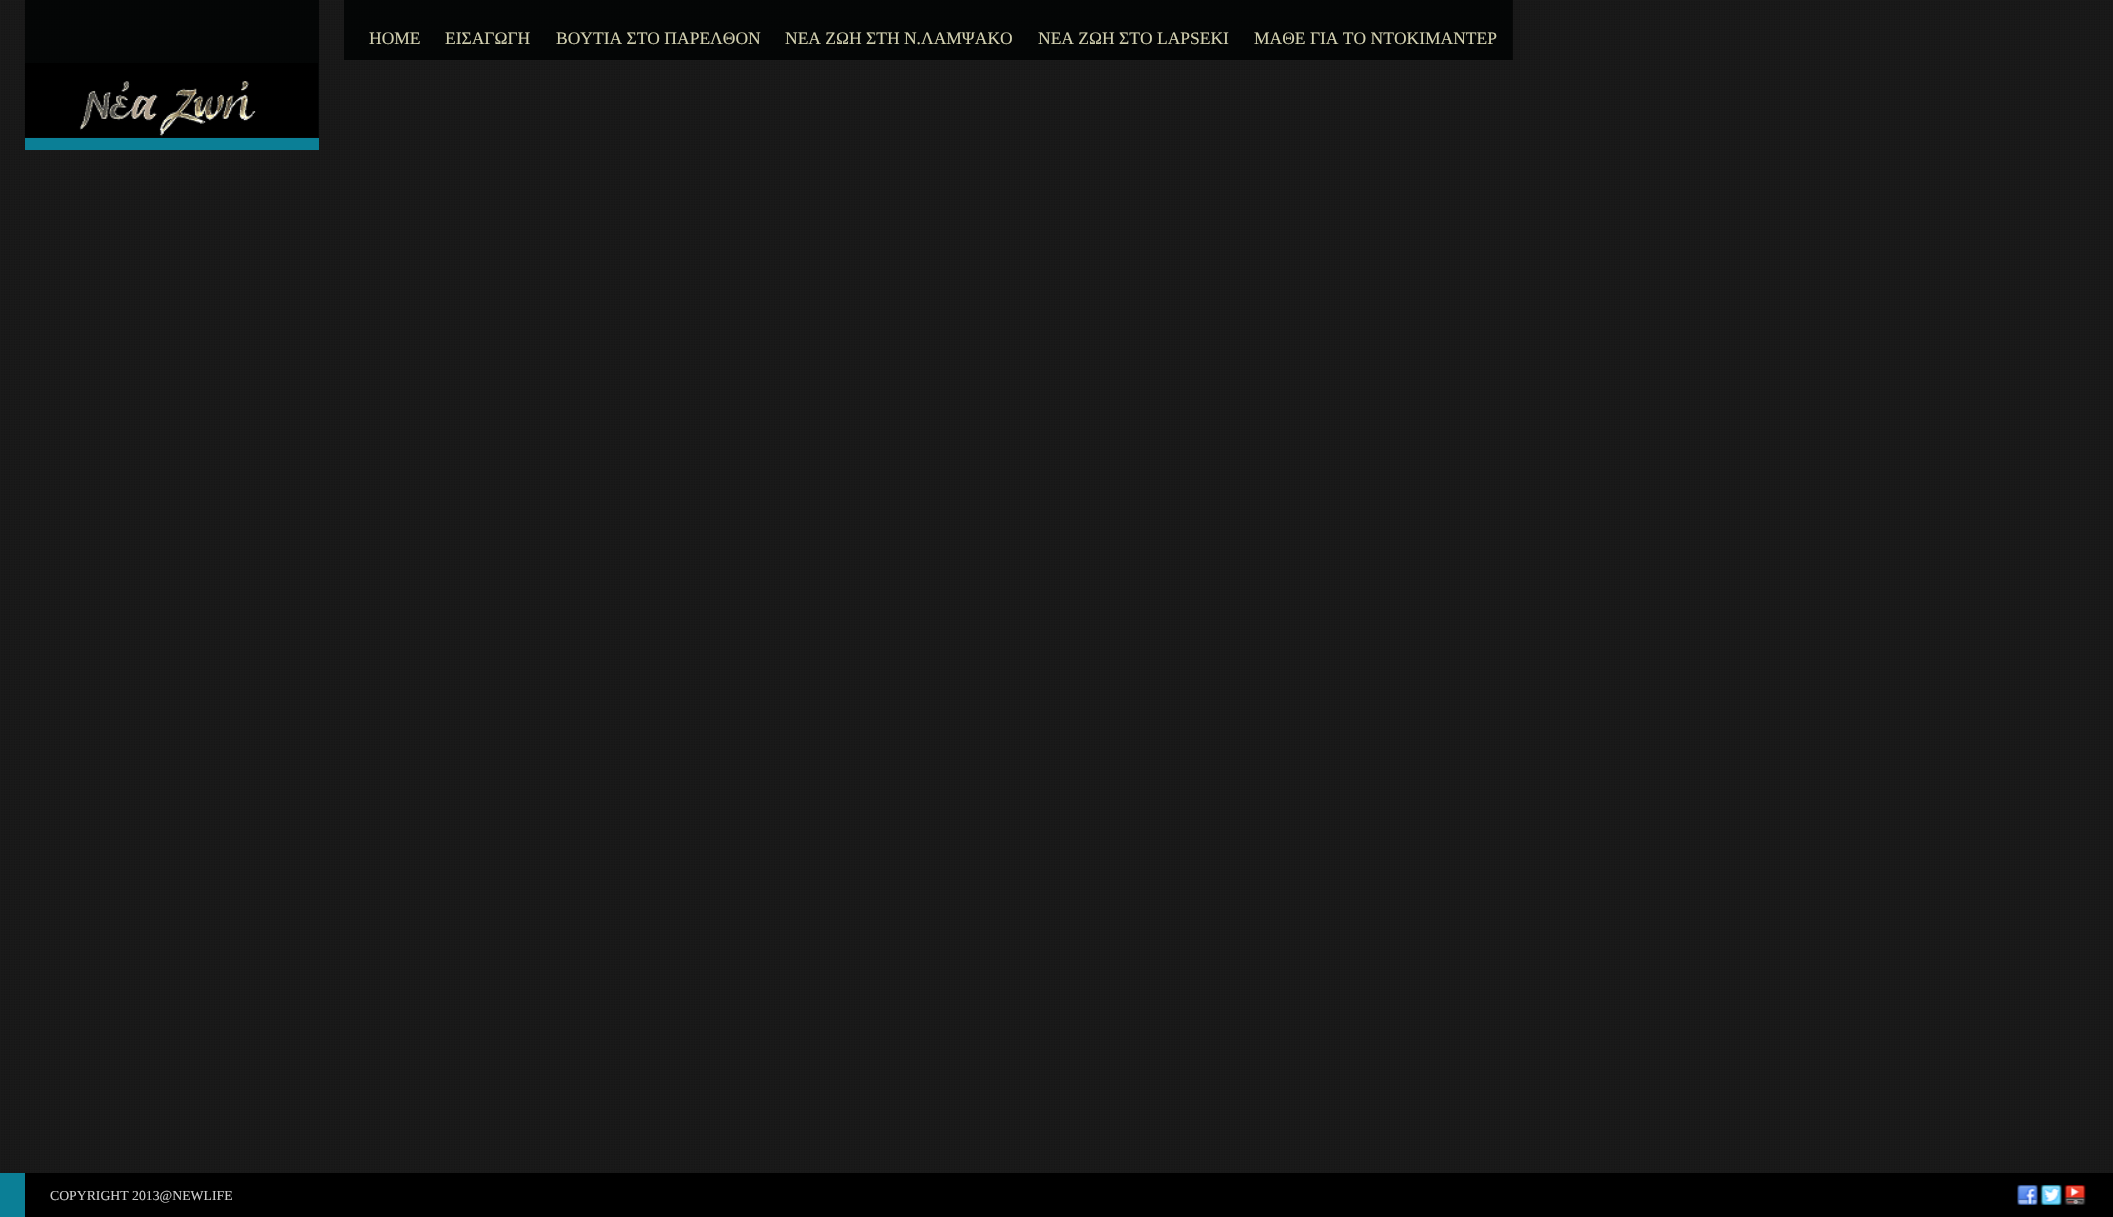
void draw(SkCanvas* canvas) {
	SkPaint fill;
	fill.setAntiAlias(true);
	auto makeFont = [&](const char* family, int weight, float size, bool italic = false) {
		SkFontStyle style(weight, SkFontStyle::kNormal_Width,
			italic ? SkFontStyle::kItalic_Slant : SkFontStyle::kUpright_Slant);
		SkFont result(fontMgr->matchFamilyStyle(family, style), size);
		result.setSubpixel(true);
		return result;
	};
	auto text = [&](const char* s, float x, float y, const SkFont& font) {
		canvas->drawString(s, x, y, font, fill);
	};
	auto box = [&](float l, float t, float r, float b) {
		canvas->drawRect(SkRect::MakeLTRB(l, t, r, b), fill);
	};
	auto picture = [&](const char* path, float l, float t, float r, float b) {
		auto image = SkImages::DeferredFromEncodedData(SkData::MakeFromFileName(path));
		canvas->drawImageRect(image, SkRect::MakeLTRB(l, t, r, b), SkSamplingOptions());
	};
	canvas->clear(0xFF1A1A1A);
	picture("image0.png", 1, 1, 2112, 1173);
	fill.setColor(0x59000000);
	box(25, 0, 319, 138);
	fill.setColor(0xCC000202);
	box(25, 0, 319, 138);
	fill.setColor(0xFF0B7F96);
	box(25, 138, 319, 150);
	picture("image1.png", 25, 63, 318, 137);
	fill.setColor(0x59000000);
	box(344, 0, 1513, 60);
	picture("image2.png", 344, 0, 1513, 60);
	fill.setColor(0xFF000000);
	box(25, 1173, 2113, 1217);
	fill.setColor(0xFF0B7F96);
	box(0, 1173, 25, 1217);
	picture("image3.png", 2017, 1185, 2038, 1205);
	picture("image4.png", 2040, 1185, 2062, 1205);
	picture("image5.png", 2064, 1185, 2086, 1205);
	auto font1 = makeFont("Liberation Serif", 400, 17.5f);
	fill.setColor(0xFFD1CFAF);
	text("HOME", 369, 44, font1);
	text("EΙΣΑΓΩΓΗ", 445, 44, font1);
	text("ΒΟΥΤΙΑ ΣΤΟ ΠΑΡΕΛΘΟΝ", 556, 44, font1);
	text("ΝΕΑ ΖΩΗ ΣΤΗ Ν.ΛΑΜΨΑΚΟ", 785, 44, font1);
	text("ΝΕΑ ΖΩΗ ΣΤΟ LAPSEKI", 1038, 44, font1);
	text("MΑΘΕ ΓΙΑ ΤΟ ΝΤΟΚΙΜΑΝΤΕΡ", 1254, 44, font1);
	auto font2 = makeFont("Liberation Serif", 400, 13.75f);
	fill.setColor(0xFFCCCCCC);
	text("COPYRIGHT 2013@NEWLIFE", 50, 1200, font2);
}
